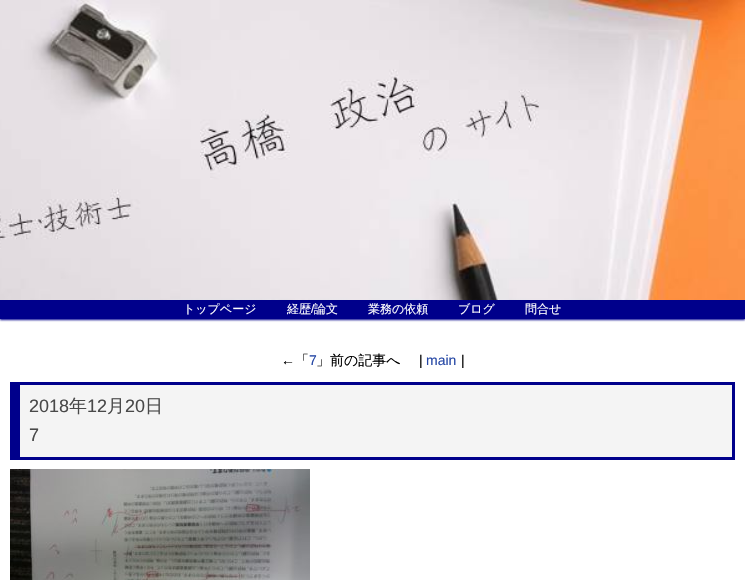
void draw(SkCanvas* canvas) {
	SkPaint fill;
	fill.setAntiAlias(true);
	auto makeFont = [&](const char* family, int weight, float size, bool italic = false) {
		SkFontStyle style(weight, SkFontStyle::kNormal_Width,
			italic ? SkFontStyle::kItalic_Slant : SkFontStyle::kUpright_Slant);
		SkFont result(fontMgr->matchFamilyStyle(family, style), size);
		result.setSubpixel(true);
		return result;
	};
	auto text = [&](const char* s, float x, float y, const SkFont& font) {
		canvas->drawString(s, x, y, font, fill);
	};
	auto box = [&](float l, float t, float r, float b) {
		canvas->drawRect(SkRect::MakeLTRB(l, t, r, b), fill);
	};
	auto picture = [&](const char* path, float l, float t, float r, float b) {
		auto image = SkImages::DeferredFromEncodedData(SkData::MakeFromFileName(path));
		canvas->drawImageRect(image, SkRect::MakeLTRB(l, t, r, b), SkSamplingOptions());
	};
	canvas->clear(0xFFFFFFFF);
	fill.setColor(0xFF00008B);
	fill.setMaskFilter(SkMaskFilter::MakeBlur(kNormal_SkBlurStyle, 1));
	canvas->drawRect(SkRect::MakeLTRB(0, 301, 745, 320), fill);
	fill.setMaskFilter(nullptr);
	picture("image0.png", 0, 0, 745, 300);
	box(0, 300, 745, 319);
	fill.setColor(0xFFF4F4F4);
	box(20, 385, 732, 457);
	fill.setColor(0xFF00008B);
	box(20, 382, 735, 385);
	box(732, 382, 735, 460);
	box(20, 457, 735, 460);
	box(10, 382, 20, 460);
	picture("image1.png", 10, 469, 310, 580);
	auto font1 = makeFont("WenQuanYi Zen Hei", 500, 12);
	fill.setColor(0xFFFFFFFF);
	text("トップページ", 183, 313, font1);
	text("経歴", 287, 313, font1);
	auto font2 = makeFont("Liberation Sans", 400, 12);
	text("/", 311, 313, font2);
	text("論文", 314, 313, font1);
	text("業務の依頼", 368, 313, font1);
	text("ブログ", 458, 313, font1);
	text("問合せ", 525, 313, font1);
	auto font3 = makeFont("Liberation Sans", 400, 14);
	fill.setColor(0xFF000000);
	text("←", 281, 365, font3);
	auto font4 = makeFont("WenQuanYi Zen Hei", 500, 14);
	text("「", 295, 365, font4);
	fill.setColor(0xFF2547A5);
	text("7", 309, 365, font3);
	fill.setColor(0xFF000000);
	text("」前の記事へ", 316, 365, font4);
	text("|", 419, 365, font3);
	fill.setColor(0xFF2547A5);
	text("main", 426, 365, font3);
	fill.setColor(0xFF000000);
	text("|", 461, 365, font3);
	auto font5 = makeFont("Liberation Sans", 400, 18);
	fill.setColor(0xFF494949);
	text("2018", 29, 412, font5);
	auto font6 = makeFont("WenQuanYi Zen Hei", 500, 18);
	text("年", 69, 412, font6);
	text("12", 87, 412, font5);
	text("月", 107, 412, font6);
	text("20", 125, 412, font5);
	text("日", 145, 412, font6);
	text("7", 29, 441, font5);
}
